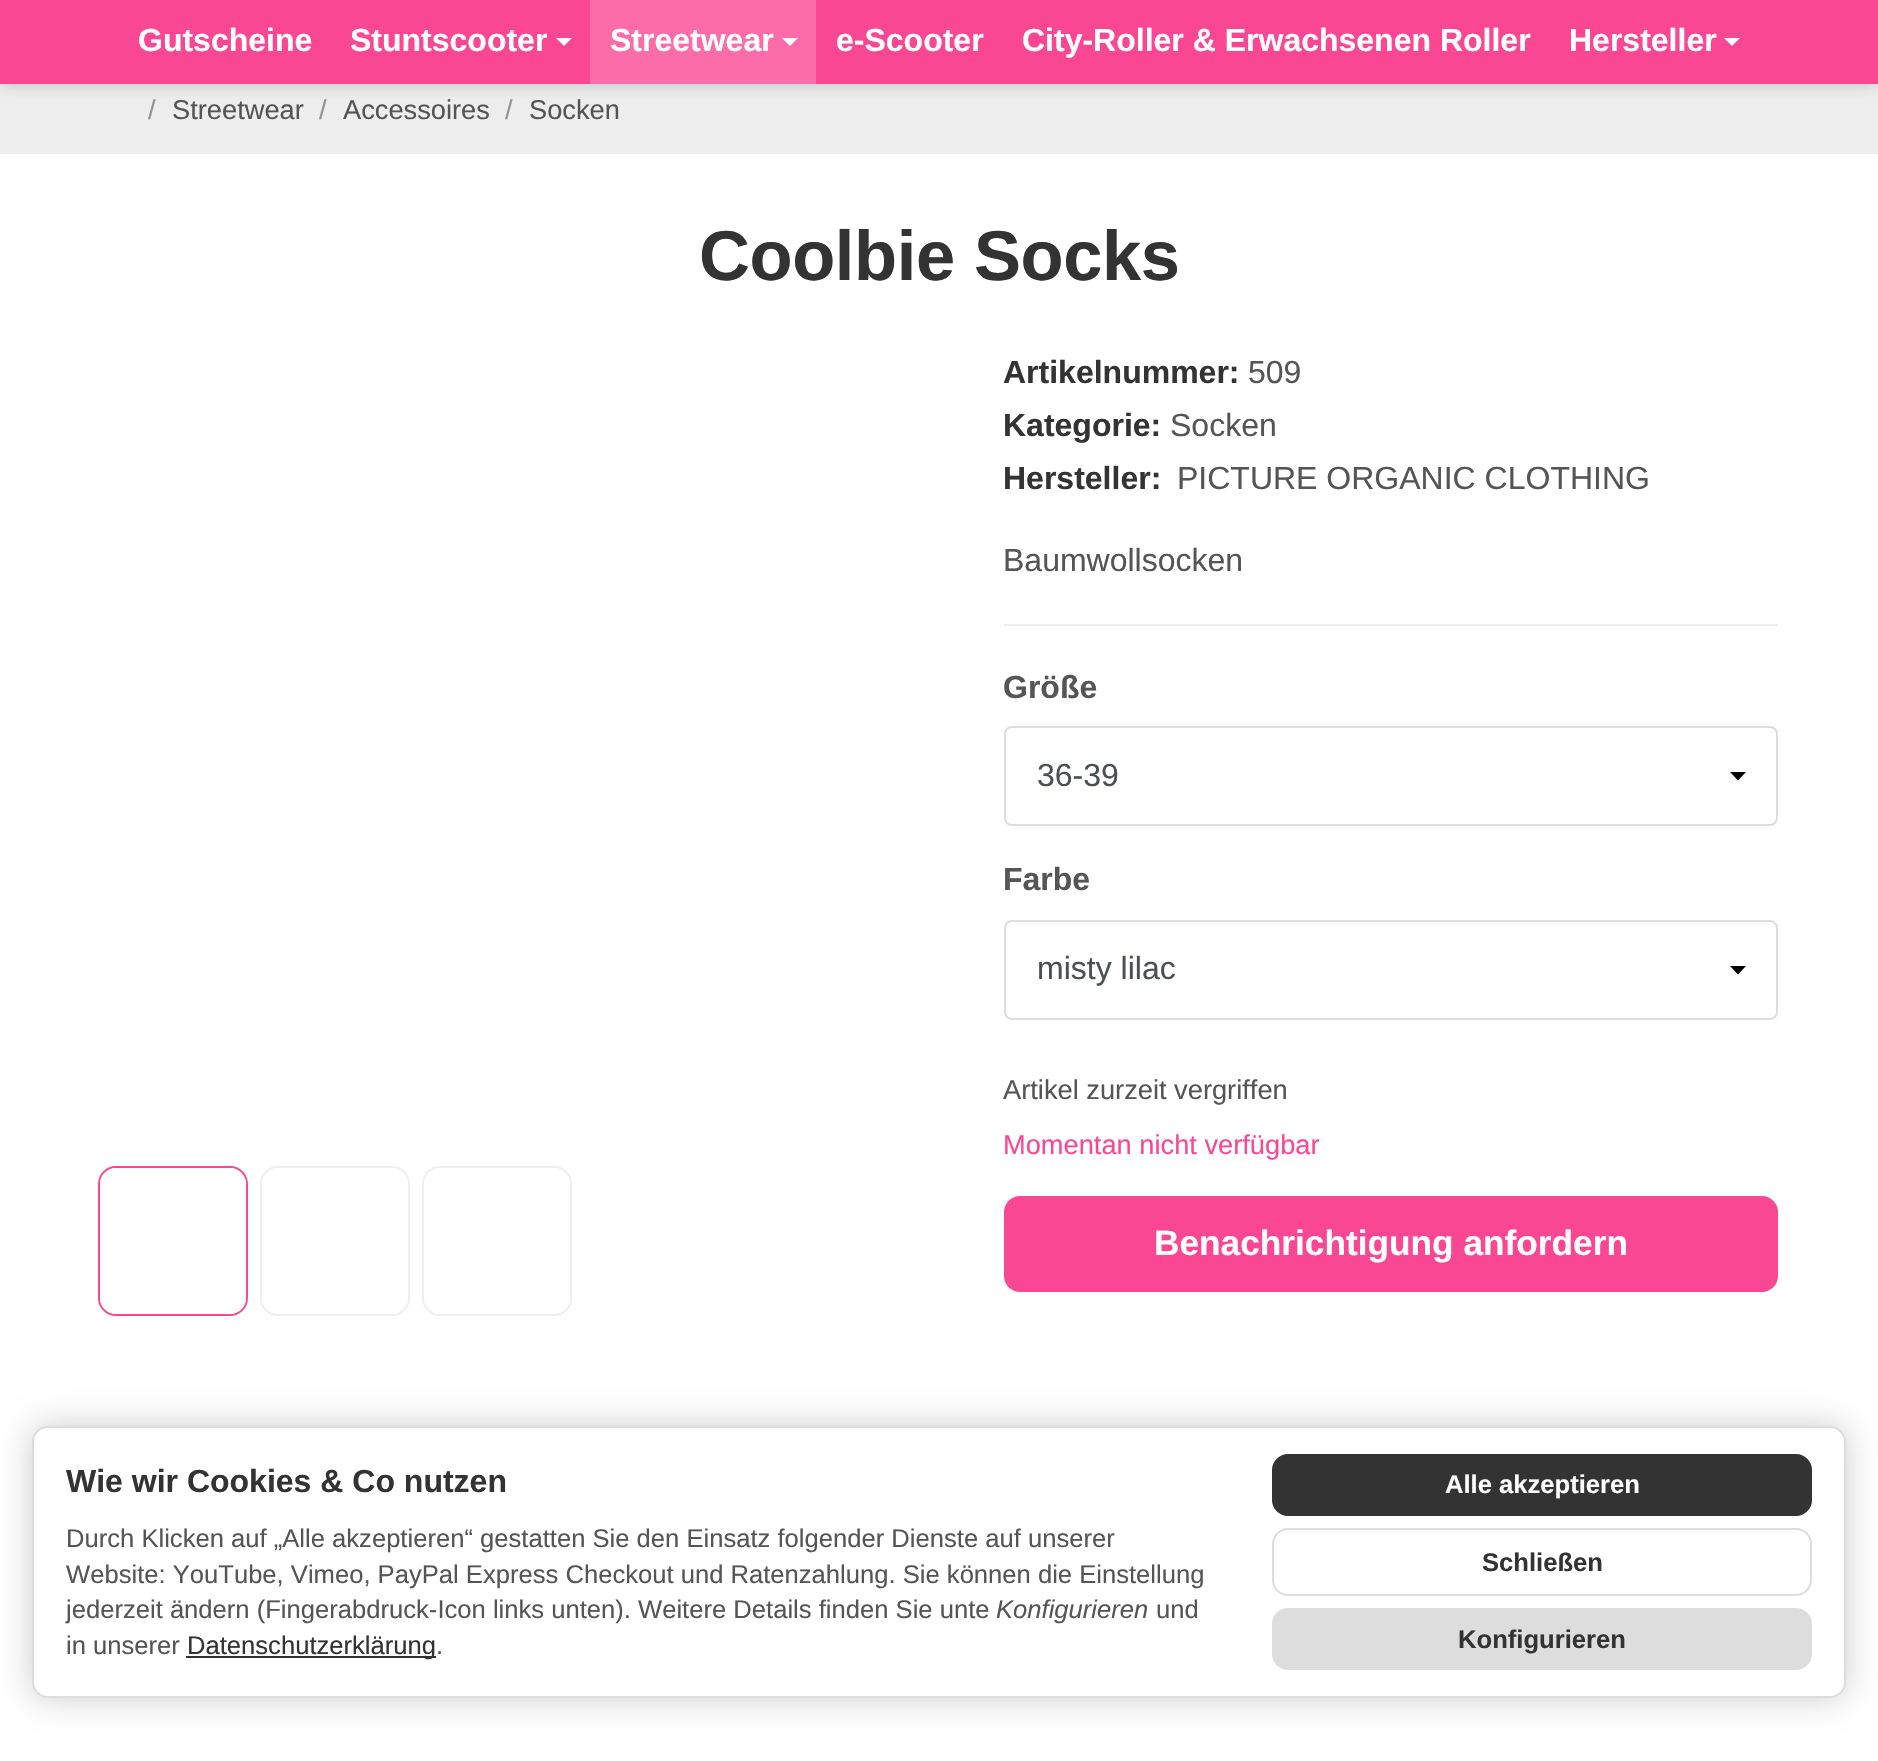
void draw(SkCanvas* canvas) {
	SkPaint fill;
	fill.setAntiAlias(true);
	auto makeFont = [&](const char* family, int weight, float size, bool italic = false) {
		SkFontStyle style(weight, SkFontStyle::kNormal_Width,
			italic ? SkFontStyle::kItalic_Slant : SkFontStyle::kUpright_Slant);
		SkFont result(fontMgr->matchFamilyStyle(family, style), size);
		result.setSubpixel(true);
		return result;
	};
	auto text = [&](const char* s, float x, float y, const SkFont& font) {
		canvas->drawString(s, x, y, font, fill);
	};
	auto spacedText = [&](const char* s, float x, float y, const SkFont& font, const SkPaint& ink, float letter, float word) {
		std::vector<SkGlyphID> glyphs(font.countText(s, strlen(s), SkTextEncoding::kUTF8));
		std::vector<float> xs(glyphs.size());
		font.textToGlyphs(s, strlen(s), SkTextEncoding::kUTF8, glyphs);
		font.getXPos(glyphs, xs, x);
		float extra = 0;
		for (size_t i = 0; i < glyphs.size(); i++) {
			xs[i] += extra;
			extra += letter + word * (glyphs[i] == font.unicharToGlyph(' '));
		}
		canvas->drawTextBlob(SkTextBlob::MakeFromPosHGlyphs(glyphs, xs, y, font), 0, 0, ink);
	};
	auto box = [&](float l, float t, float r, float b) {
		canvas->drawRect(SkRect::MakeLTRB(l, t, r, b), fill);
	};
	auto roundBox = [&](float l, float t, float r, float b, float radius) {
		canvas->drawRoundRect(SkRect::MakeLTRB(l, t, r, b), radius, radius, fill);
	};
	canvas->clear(0xFFFFFFFF);
	fill.setColor(0xFFEEEEEE);
	box(0, 84, 1878, 154);
	fill.setColor(0x33000000);
	fill.setMaskFilter(SkMaskFilter::MakeBlur(kNormal_SkBlurStyle, 8));
	canvas->drawRect(SkRect::MakeLTRB(0, 0, 1878, 84), fill);
	fill.setMaskFilter(nullptr);
	fill.setColor(0xFFFA4794);
	box(0, 0, 1878, 84);
	fill.setColor(0xFFFFFFFF);
	canvas->drawPath(SkPathBuilder().moveTo(556, 38).lineTo(572, 38).lineTo(564, 46).close().detach(), fill);
	fill.setColor(0xFFFB6CA9);
	box(590, 0, 816, 84);
	fill.setColor(0xFFFFFFFF);
	canvas->drawPath(SkPathBuilder().moveTo(782, 38).lineTo(798, 38).lineTo(790, 46).close().detach(), fill);
	canvas->drawPath(SkPathBuilder().moveTo(1724, 38).lineTo(1740, 38).lineTo(1732, 46).close().detach(), fill);
	fill.setStyle(SkPaint::kStroke_Style);
	fill.setStrokeWidth(2);
	fill.setColor(0xFFFA4794);
	canvas->drawRoundRect(SkRect::MakeLTRB(99, 1167, 247, 1315), 17, 17, fill);
	fill.setStyle(SkPaint::kFill_Style);
	fill.setColor(0xFFFFFFFF);
	roundBox(100, 1168, 246, 1314, 16);
	fill.setStyle(SkPaint::kStroke_Style);
	fill.setColor(0xFFEEEEEE);
	canvas->drawRoundRect(SkRect::MakeLTRB(261, 1167, 409, 1315), 17, 17, fill);
	fill.setStyle(SkPaint::kFill_Style);
	fill.setColor(0xFFFFFFFF);
	roundBox(262, 1168, 408, 1314, 16);
	fill.setStyle(SkPaint::kStroke_Style);
	fill.setColor(0xFFEEEEEE);
	canvas->drawRoundRect(SkRect::MakeLTRB(423, 1167, 571, 1315), 17, 17, fill);
	fill.setStyle(SkPaint::kFill_Style);
	fill.setColor(0xFFFFFFFF);
	roundBox(424, 1168, 570, 1314, 16);
	fill.setColor(0xFFEEEEEE);
	box(1004, 624, 1778, 626);
	fill.setColor(0xFF010202);
	canvas->drawPath(SkPathBuilder().moveTo(1738, 780.5f).lineTo(1746, 772).lineTo(1730, 772).close().detach(), fill);
	fill.setStyle(SkPaint::kStroke_Style);
	fill.setColor(0xFFDDDDDD);
	canvas->drawRoundRect(SkRect::MakeLTRB(1005, 727, 1777, 825), 7, 7, fill);
	fill.setStyle(SkPaint::kFill_Style);
	fill.setColor(0xFF010202);
	canvas->drawPath(SkPathBuilder().moveTo(1738, 974.5f).lineTo(1746, 966).lineTo(1730, 966).close().detach(), fill);
	fill.setStyle(SkPaint::kStroke_Style);
	fill.setColor(0xFFDDDDDD);
	canvas->drawRoundRect(SkRect::MakeLTRB(1005, 921, 1777, 1019), 7, 7, fill);
	fill.setStyle(SkPaint::kFill_Style);
	fill.setColor(0xFFFA4794);
	roundBox(1004, 1196, 1778, 1292, 16);
	fill.setColor(0x33000000);
	fill.setMaskFilter(SkMaskFilter::MakeBlur(kNormal_SkBlurStyle, 16));
	canvas->drawRoundRect(SkRect::MakeLTRB(32, 1426, 1846, 1698), 16, 16, fill);
	fill.setMaskFilter(nullptr);
	fill.setColor(0xFFFFFFFF);
	canvas->drawRoundRect(SkRect::MakeLTRB(33, 1427, 1845, 1697), 15, 15, fill);
	fill.setStyle(SkPaint::kStroke_Style);
	fill.setColor(0xFFDDDDDD);
	canvas->drawRoundRect(SkRect::MakeLTRB(33, 1427, 1845, 1697), 15, 15, fill);
	fill.setStyle(SkPaint::kFill_Style);
	fill.setColor(0xFF333333);
	box(186, 1656, 436, 1658);
	roundBox(1272, 1454, 1812, 1516, 16);
	fill.setStyle(SkPaint::kStroke_Style);
	fill.setColor(0xFFDDDDDD);
	canvas->drawRoundRect(SkRect::MakeLTRB(1273, 1529, 1811, 1595), 15, 15, fill);
	fill.setStyle(SkPaint::kFill_Style);
	roundBox(1272, 1608, 1812, 1670, 16);
	auto font1 = makeFont("Liberation Sans", 700, 32);
	fill.setColor(0xFFFFFFFF);
	text("Gutscheine", 138, 51, font1);
	text("Stuntscooter", 350, 51, font1);
	text("Streetwear", 610, 51, font1);
	text("e-Scooter", 836, 51, font1);
	text("City-Roller & Erwachsenen Roller", 1022, 51, font1);
	text("Hersteller", 1569, 51, font1);
	auto font2 = makeFont("Liberation Sans", 400, 27.25f);
	fill.setColor(0xFF929292);
	text("/", 148, 119, font2);
	fill.setColor(0xFF555555);
	text("Streetwear", 172, 119, font2);
	fill.setColor(0xFF929292);
	text("/", 319, 119, font2);
	fill.setColor(0xFF555555);
	text("Accessoires", 343, 119, font2);
	fill.setColor(0xFF929292);
	text("/", 505, 119, font2);
	fill.setColor(0xFF555555);
	text("Socken", 529, 119, font2);
	auto font3 = makeFont("Liberation Sans", 700, 70.5f);
	fill.setColor(0xFF333333);
	spacedText("Coolbie Socks", 699, 280, font3, fill, -0.4f, 0);
	text("Artikelnummer:", 1003, 383, font1);
	auto font4 = makeFont("Liberation Sans", 400, 32);
	fill.setColor(0xFF555555);
	text("509", 1248, 383, font4);
	fill.setColor(0xFF333333);
	text("Kategorie:", 1003, 436, font1);
	fill.setColor(0xFF555555);
	text("Socken", 1170, 436, font4);
	fill.setColor(0xFF333333);
	text("Hersteller:", 1003, 489, font1);
	fill.setColor(0xFF555555);
	text("PICTURE ORGANIC CLOTHING", 1177, 489, font4);
	text("Baumwollsocken", 1003, 571, font4);
	text("Größe", 1003, 698, font1);
	fill.setColor(0xFF495057);
	text("36-39", 1037, 786, font4);
	fill.setColor(0xFF555555);
	text("Farbe", 1003, 890, font1);
	fill.setColor(0xFF495057);
	text("misty lilac", 1037, 979, font4);
	fill.setColor(0xFF555555);
	text("Artikel zurzeit vergriffen", 1003, 1099, font2);
	fill.setColor(0xFFFA4794);
	text("Momentan nicht verfügbar", 1003, 1154, font2);
	auto font5 = makeFont("Liberation Sans", 700, 35.25f);
	fill.setColor(0xFFFFFFFF);
	text("Benachrichtigung anfordern", 1154, 1255, font5);
	fill.setColor(0xFF333333);
	text("Wie wir Cookies & Co nutzen", 66, 1492, font1);
	auto font6 = makeFont("Liberation Sans", 400, 25.6f);
	fill.setColor(0xFF555555);
	text("Durch Klicken auf „Alle akzeptieren“ gestatten Sie den Einsatz folgender Dienste auf unserer", 66, 1547, font6);
	text("Website: YouTube, Vimeo, PayPal Express Checkout und Ratenzahlung. Sie können die Einstellung", 66, 1583, font6);
	text("jederzeit ändern (Fingerabdruck-Icon links unten). Weitere Details finden Sie unte", 66, 1618, font6);
	auto font7 = makeFont("Liberation Sans", 400, 25.6f, true);
	text("Konfigurieren", 996, 1618, font7);
	text("und", 1156, 1618, font6);
	text("in unserer", 66, 1654, font6);
	fill.setColor(0xFF333333);
	text("Datenschutzerklärung", 187, 1654, font6);
	fill.setColor(0xFF555555);
	text(".", 436, 1654, font6);
	auto font8 = makeFont("Liberation Sans", 700, 25.6f);
	fill.setColor(0xFFFFFFFF);
	text("Alle akzeptieren", 1445, 1493, font8);
	fill.setColor(0xFF333333);
	text("Schließen", 1482, 1571, font8);
	text("Konfigurieren", 1458, 1648, font8);
}
